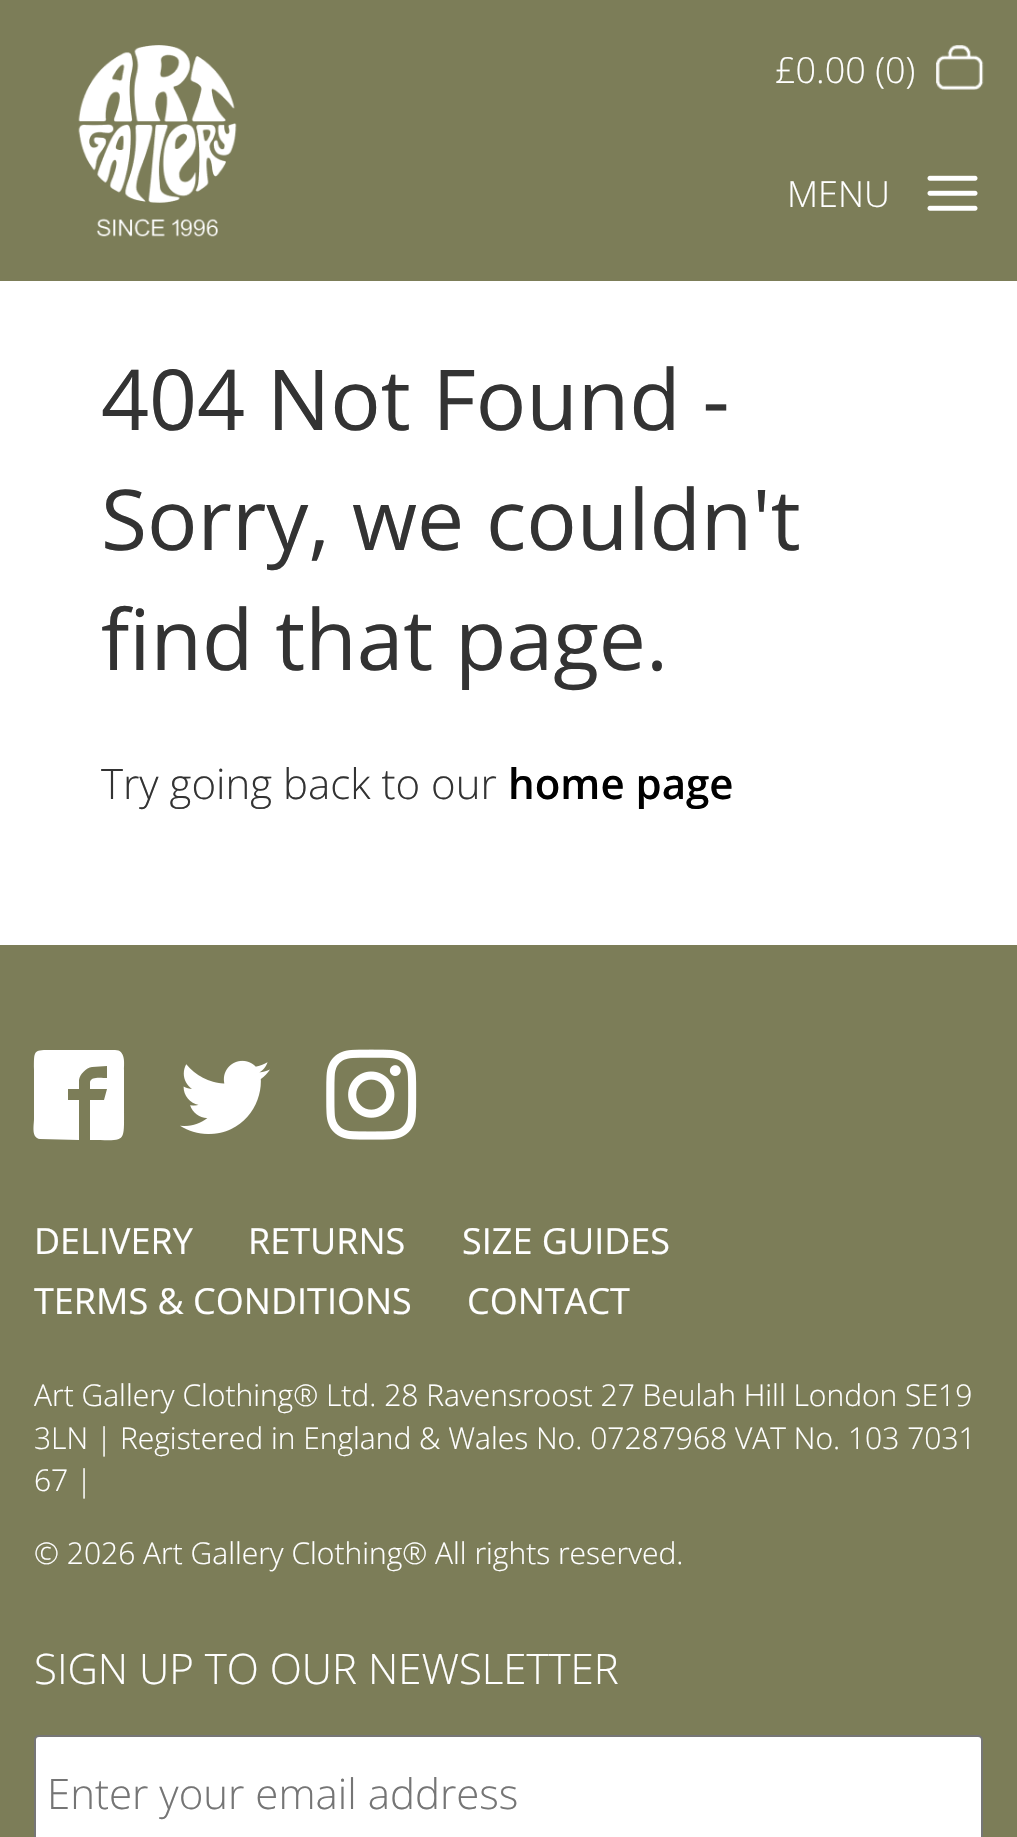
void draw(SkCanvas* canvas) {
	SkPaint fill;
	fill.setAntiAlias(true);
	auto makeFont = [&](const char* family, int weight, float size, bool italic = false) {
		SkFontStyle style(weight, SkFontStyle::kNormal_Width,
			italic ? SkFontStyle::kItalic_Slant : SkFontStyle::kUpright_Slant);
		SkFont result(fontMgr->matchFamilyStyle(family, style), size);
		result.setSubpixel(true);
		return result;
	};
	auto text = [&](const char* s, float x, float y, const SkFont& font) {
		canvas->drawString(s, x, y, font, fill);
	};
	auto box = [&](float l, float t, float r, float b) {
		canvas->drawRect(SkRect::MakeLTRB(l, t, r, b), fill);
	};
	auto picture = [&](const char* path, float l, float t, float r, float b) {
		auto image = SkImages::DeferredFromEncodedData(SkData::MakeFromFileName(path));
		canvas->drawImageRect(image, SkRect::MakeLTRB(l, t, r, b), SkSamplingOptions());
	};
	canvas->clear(0xFFFFFFFF);
	fill.setColor(0xFF7C7D58);
	box(0, 0, 1017, 281);
	picture("image0.png", 78, 45, 237, 237);
	picture("image1.png", 936, 45, 984, 90);
	picture("image2.png", 927, 175, 978, 211);
	box(0, 945, 1017, 1837);
	fill.setColor(0xFFFFFFFF);
	canvas->drawPath(SkPathBuilder().moveTo(115, 1050).lineTo(54, 1050).cubicTo(33, 1050, 34, 1049, 34, 1070).lineTo(34, 1119).cubicTo(34, 1125, 31, 1138, 40, 1139).lineTo(79, 1140).lineTo(79, 1100).lineTo(68, 1100).lineTo(68, 1089).lineTo(79, 1089).lineTo(79, 1080).cubicTo(80, 1074, 86, 1068, 92, 1067).lineTo(107, 1066).lineTo(107, 1078).cubicTo(102, 1078, 91, 1076, 90, 1082).lineTo(90, 1089).lineTo(107, 1089).lineTo(104, 1100).lineTo(90, 1100).lineTo(90, 1140).cubicTo(127, 1140, 124, 1145, 124, 1107).lineTo(124, 1070).cubicTo(124, 1064, 126, 1050, 115, 1050).close().detach(), fill);
	picture("image3.png", 180, 1060, 270, 1134);
	picture("image4.png", 326, 1049, 417, 1140);
	canvas->drawRoundRect(SkRect::MakeLTRB(35, 1736, 982, 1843), 4, 4, fill);
	fill.setStyle(SkPaint::kStroke_Style);
	fill.setStrokeWidth(2);
	fill.setColor(0xFF767676);
	canvas->drawRoundRect(SkRect::MakeLTRB(35, 1736, 982, 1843), 4, 4, fill);
	auto font1 = makeFont("Open Sans", 300, 36);
	fill.setStyle(SkPaint::kFill_Style);
	fill.setColor(0xFFFFFFFF);
	text("£0.00 (0)", 775, 83, font1);
	text("MENU", 787, 207, font1);
	auto font2 = makeFont("Open Sans", 400, 84);
	fill.setColor(0xFF333333);
	text("404 Not Found -", 101, 430, font2);
	text("Sorry, we couldn't", 101, 550, font2);
	text("find that page.", 101, 670, font2);
	auto font3 = makeFont("Open Sans", 300, 42);
	text("Try going back to our", 101, 799, font3);
	auto font4 = makeFont("Open Sans", 600, 42);
	fill.setColor(0xFF000000);
	text("home page", 508, 799, font4);
	auto font5 = makeFont("Open Sans", 400, 36);
	fill.setColor(0xFFFFFFFF);
	text("DELIVERY", 34, 1254, font5);
	text("RETURNS", 248, 1254, font5);
	text("SIZE GUIDES", 462, 1254, font5);
	text("TERMS & CONDITIONS", 34, 1314, font5);
	text("CONTACT", 467, 1314, font5);
	auto font6 = makeFont("Open Sans", 300, 30);
	text("Art Gallery Clothing® Ltd. 28 Ravensroost 27 Beulah Hill London SE19", 34, 1406, font6);
	text("3LN | Registered in England & Wales No. 07287968 VAT No. 103 7031", 34, 1449, font6);
	text("67 |", 34, 1491, font6);
	text("© 2026 Art Gallery Clothing® All rights reserved.", 34, 1564, font6);
	text("SIGN UP TO OUR NEWSLETTER", 34, 1684, font3);
	fill.setColor(0xFF757575);
	text("Enter your email address", 47, 1809, font3);
}
